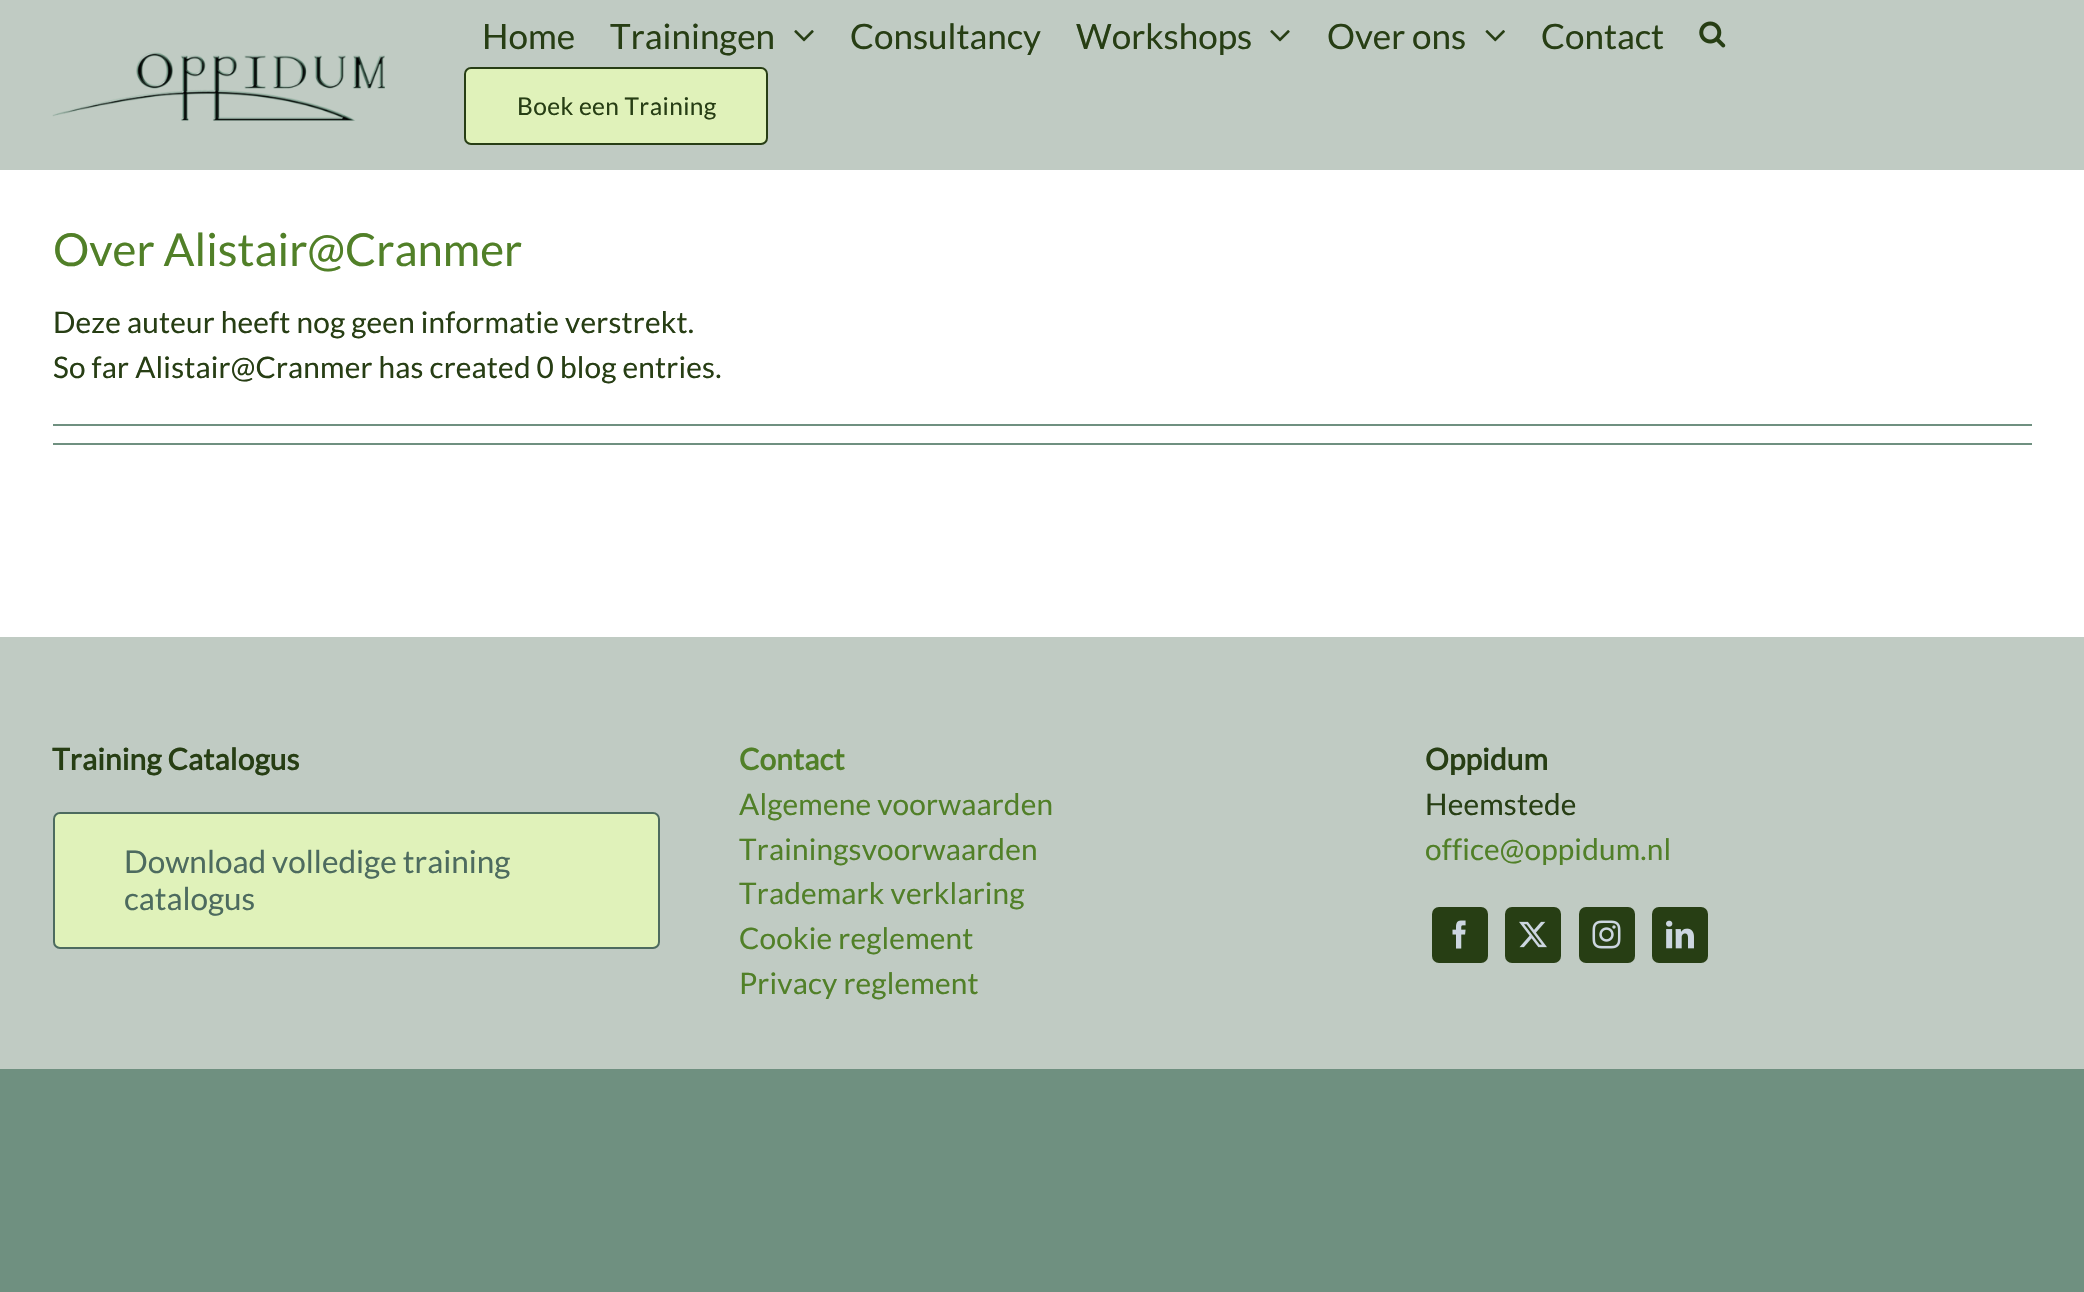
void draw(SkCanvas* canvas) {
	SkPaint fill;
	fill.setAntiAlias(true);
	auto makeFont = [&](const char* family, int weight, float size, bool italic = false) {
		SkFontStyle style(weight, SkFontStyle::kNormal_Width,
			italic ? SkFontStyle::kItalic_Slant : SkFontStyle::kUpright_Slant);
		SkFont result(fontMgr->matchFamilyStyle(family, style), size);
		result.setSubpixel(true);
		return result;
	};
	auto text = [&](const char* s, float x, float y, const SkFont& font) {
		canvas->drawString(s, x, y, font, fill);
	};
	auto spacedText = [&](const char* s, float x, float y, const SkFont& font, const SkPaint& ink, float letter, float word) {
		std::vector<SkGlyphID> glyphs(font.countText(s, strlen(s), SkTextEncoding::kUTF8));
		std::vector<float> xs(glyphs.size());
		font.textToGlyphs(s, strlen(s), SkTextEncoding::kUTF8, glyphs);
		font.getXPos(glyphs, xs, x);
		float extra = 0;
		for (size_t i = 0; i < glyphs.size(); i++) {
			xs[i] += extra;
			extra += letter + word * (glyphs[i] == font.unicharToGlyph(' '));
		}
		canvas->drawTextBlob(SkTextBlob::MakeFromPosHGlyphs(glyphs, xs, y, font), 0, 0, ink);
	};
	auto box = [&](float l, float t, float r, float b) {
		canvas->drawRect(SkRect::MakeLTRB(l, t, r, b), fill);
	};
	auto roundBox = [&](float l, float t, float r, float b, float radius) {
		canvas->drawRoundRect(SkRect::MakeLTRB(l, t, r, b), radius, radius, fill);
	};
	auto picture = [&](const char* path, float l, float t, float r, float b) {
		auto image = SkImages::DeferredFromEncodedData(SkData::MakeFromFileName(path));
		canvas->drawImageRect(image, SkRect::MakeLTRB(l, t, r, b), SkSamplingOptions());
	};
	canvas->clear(0xFF6F9080);
	fill.setColor(0xFFFFFFFF);
	box(0, 170, 2084, 637);
	fill.setColor(0xFFC0CBC3);
	box(0, 0, 2084, 170);
	picture("image0.png", 52, 52, 385, 121);
	picture("image1.png", 794, 30, 814, 42);
	picture("image1.png", 1270, 30, 1290, 42);
	picture("image2.png", 1485, 30, 1505, 42);
	picture("image3.png", 1699, 21, 1726, 48);
	fill.setColor(0xFFE0F2BA);
	canvas->drawRoundRect(SkRect::MakeLTRB(465, 68, 767, 144), 6, 6, fill);
	fill.setStyle(SkPaint::kStroke_Style);
	fill.setStrokeWidth(2);
	fill.setColor(0xFF273E14);
	canvas->drawRoundRect(SkRect::MakeLTRB(465, 68, 767, 144), 6, 6, fill);
	fill.setStyle(SkPaint::kFill_Style);
	fill.setColor(0xFF6F9080);
	box(53, 424, 2032, 426);
	box(53, 443, 2032, 445);
	fill.setColor(0xFFC0CBC3);
	box(0, 637, 2084, 1069);
	fill.setColor(0xFFE0F2BA);
	canvas->drawRoundRect(SkRect::MakeLTRB(54, 813, 659, 948), 6, 6, fill);
	fill.setStyle(SkPaint::kStroke_Style);
	fill.setColor(0xFF4D6B5F);
	canvas->drawRoundRect(SkRect::MakeLTRB(54, 813, 659, 948), 6, 6, fill);
	fill.setStyle(SkPaint::kFill_Style);
	fill.setColor(0xFF273E14);
	roundBox(1432, 907, 1488, 963, 7);
	picture("image4.png", 1452, 920, 1466, 949);
	roundBox(1505, 907, 1561, 963, 7);
	picture("image5.png", 1519, 921, 1547, 948);
	roundBox(1579, 907, 1635, 963, 7);
	picture("image6.png", 1592, 920, 1621, 949);
	roundBox(1652, 907, 1708, 963, 7);
	picture("image7.png", 1666, 920, 1694, 949);
	auto font1 = makeFont("Lato", 400, 35);
	text("Home", 482, 49, font1);
	text("Trainingen", 610, 49, font1);
	text("Consultancy", 850, 49, font1);
	text("Workshops", 1076, 49, font1);
	text("Over ons", 1327, 49, font1);
	text("Contact", 1541, 49, font1);
	auto font2 = makeFont("Lato", 400, 24.5f);
	spacedText("Boek een Training", 517, 115, font2, fill, 0.4f, 0);
	auto font3 = makeFont("Lato", 400, 45.5f);
	fill.setColor(0xFF518028);
	text("Over Alistair@Cranmer", 53, 266, font3);
	auto font4 = makeFont("Lato", 400, 29.75f);
	fill.setColor(0xFF273E14);
	spacedText("Deze auteur heeft nog geen informatie verstrekt.", 53, 333, font4, fill, 0.18f, 0);
	spacedText("So far Alistair@Cranmer has created 0 blog entries.", 53, 378, font4, fill, 0.18f, 0);
	auto font5 = makeFont("Lato", 700, 29.75f);
	spacedText("Training Catalogus", 52, 770, font5, fill, 0.18f, 0);
	auto font6 = makeFont("Lato", 400, 31.5f);
	fill.setColor(0xFF4D6B5F);
	text("Download volledige training", 124, 873, font6);
	text("catalogus", 124, 910, font6);
	fill.setColor(0xFF518028);
	spacedText("Contact", 739, 770, font5, fill, 0.18f, 0);
	spacedText("Algemene voorwaarden", 739, 815, font4, fill, 0.18f, 0);
	spacedText("Trainingsvoorwaarden", 739, 860, font4, fill, 0.18f, 0);
	spacedText("Trademark verklaring", 739, 904, font4, fill, 0.18f, 0);
	spacedText("Cookie reglement", 739, 949, font4, fill, 0.18f, 0);
	spacedText("Privacy reglement", 739, 994, font4, fill, 0.18f, 0);
	fill.setColor(0xFF273E14);
	spacedText("Oppidum", 1425, 770, font5, fill, 0.18f, 0);
	spacedText("Heemstede", 1425, 815, font4, fill, 0.18f, 0);
	fill.setColor(0xFF518028);
	spacedText("office@oppidum.nl", 1425, 860, font4, fill, 0.18f, 0);
}
